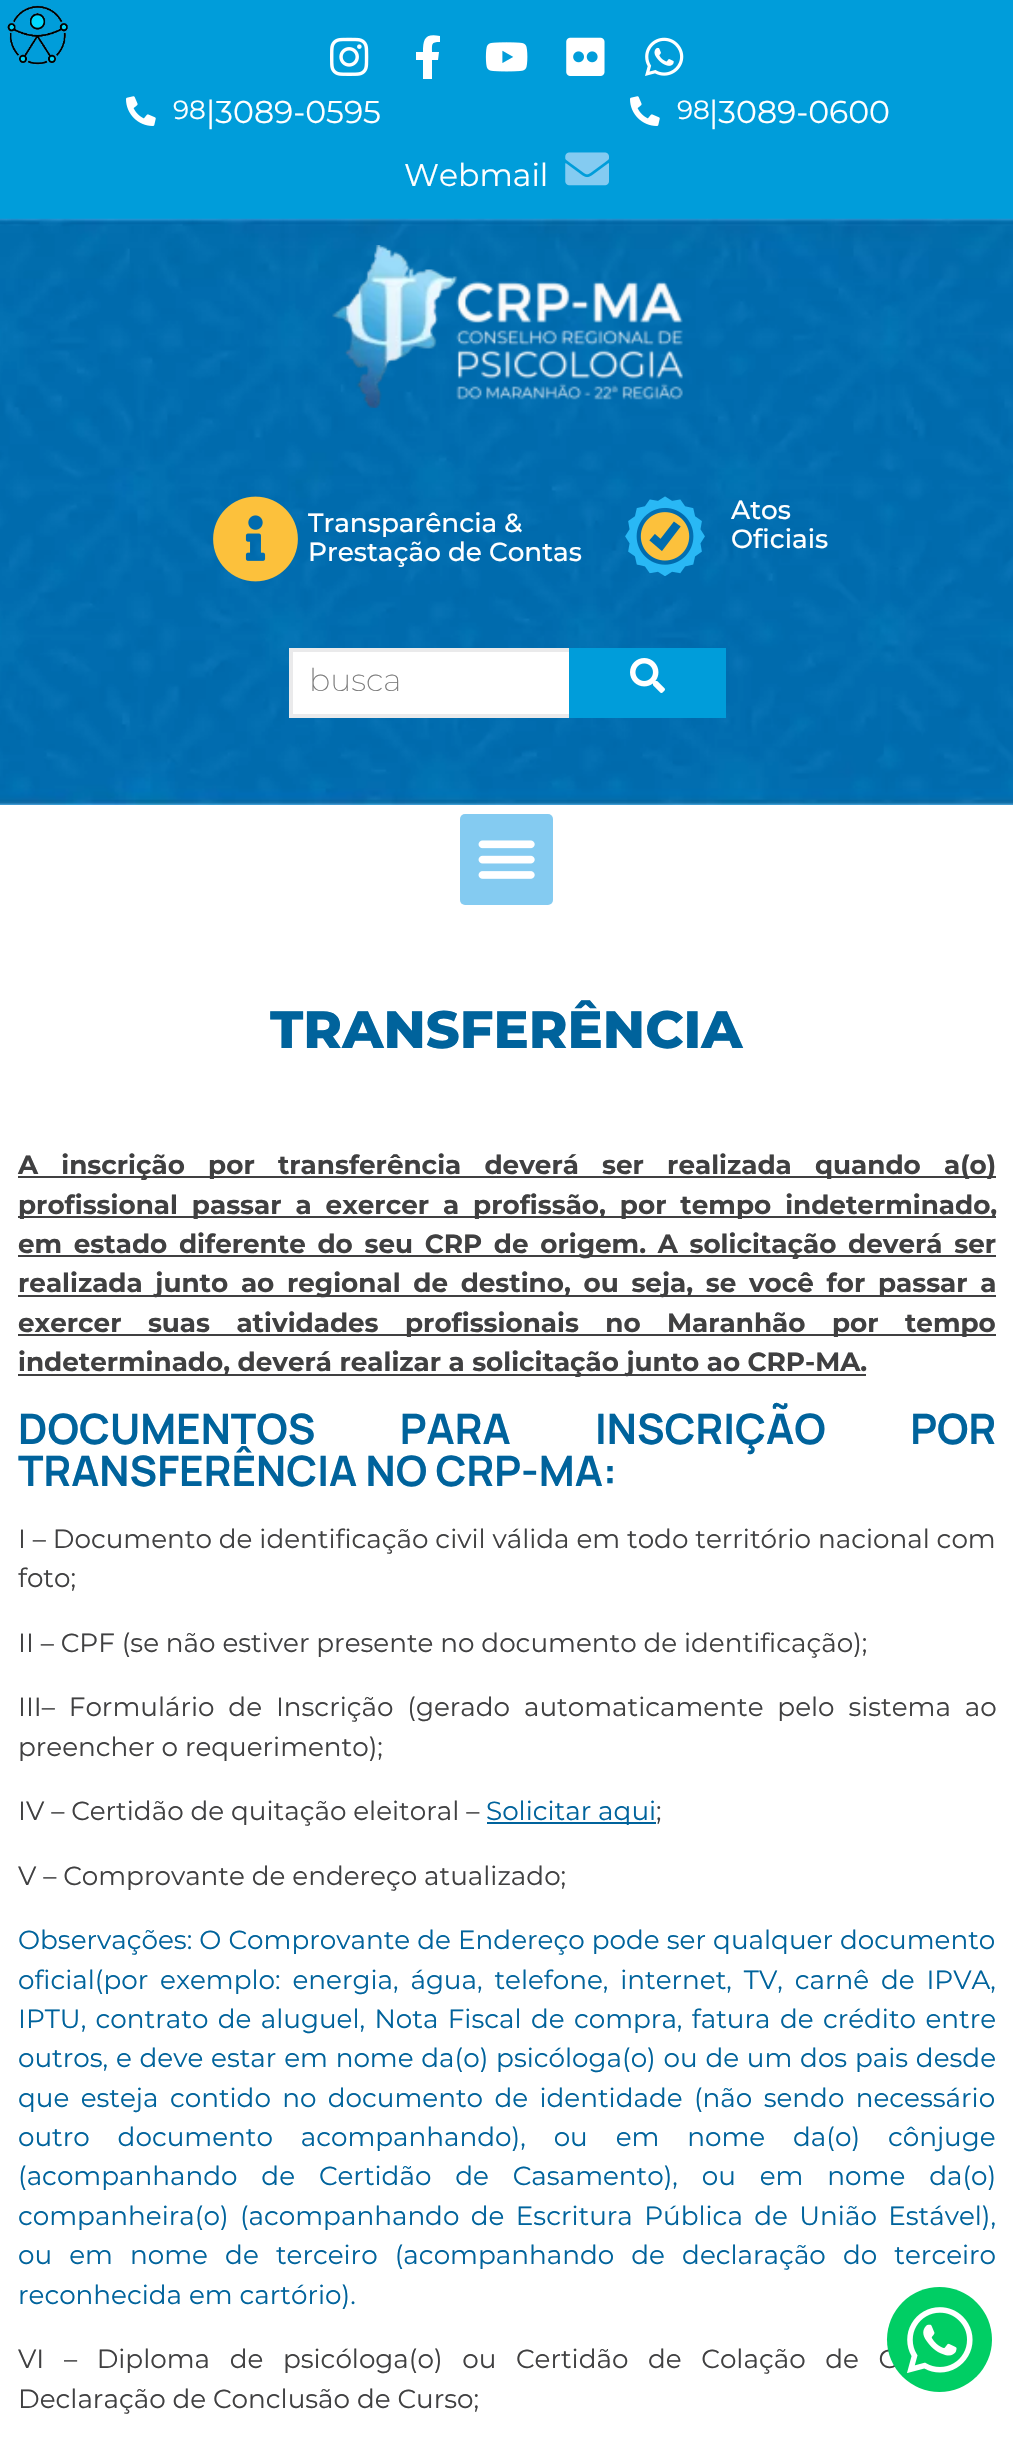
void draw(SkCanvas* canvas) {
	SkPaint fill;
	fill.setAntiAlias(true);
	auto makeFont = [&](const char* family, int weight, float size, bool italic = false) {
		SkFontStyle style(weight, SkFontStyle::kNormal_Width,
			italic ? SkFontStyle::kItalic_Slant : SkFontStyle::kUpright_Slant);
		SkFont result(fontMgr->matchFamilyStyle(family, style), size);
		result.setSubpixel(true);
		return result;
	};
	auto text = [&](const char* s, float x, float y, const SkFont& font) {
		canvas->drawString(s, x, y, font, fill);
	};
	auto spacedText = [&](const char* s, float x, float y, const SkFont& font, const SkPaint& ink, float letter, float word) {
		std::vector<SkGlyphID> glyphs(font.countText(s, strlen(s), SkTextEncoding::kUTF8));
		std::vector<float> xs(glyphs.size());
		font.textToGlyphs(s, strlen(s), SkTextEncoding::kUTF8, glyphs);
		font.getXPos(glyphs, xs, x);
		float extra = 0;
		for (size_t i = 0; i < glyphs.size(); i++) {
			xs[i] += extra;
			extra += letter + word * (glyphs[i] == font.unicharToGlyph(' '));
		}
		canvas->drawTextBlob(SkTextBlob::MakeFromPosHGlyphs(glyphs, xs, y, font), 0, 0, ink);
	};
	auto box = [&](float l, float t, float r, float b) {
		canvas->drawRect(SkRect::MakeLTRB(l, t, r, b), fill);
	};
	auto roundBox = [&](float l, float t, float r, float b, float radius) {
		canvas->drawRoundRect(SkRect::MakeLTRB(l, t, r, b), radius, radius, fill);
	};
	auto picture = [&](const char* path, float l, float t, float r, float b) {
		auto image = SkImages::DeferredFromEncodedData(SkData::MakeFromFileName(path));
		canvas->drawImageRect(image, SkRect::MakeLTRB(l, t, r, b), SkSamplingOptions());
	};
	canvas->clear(0xFFFFFFFF);
	fill.setColor(0xFF009DDA);
	box(0, 0, 1013, 219);
	picture("image0.png", 7, 5, 68, 65);
	picture("image1.png", 330, 37, 369, 76);
	fill.setColor(0xFFFFFFFF);
	canvas->drawPath(SkPathBuilder().moveTo(438, 60).lineTo(439, 52).lineTo(432, 52).cubicTo(432, 44, 431, 42, 440, 42).lineTo(440, 36).cubicTo(425, 33, 423, 39, 423, 52).lineTo(416, 52).lineTo(416, 60).lineTo(423, 60).lineTo(423, 79).lineTo(432, 79).lineTo(432, 60).close().detach(), fill);
	picture("image2.png", 485, 42, 528, 72);
	picture("image3.png", 566, 37, 605, 76);
	picture("image4.png", 645, 37, 684, 76);
	picture("image5.png", 126, 96, 156, 126);
	picture("image5.png", 630, 96, 660, 126);
	picture("image6.png", 565, 152, 609, 186);
	picture("image7.png", 0, 218, 1013, 805);
	picture("image8.png", 332, 245, 683, 408);
	picture("image10.png", 213, 496, 298, 582);
	picture("image11.png", 625, 496, 705, 576);
	box(293, 652, 569, 714);
	fill.setStyle(SkPaint::kStroke_Style);
	fill.setStrokeWidth(4);
	fill.setColor(0xFFEAEAEB);
	canvas->drawRect(SkRect::MakeLTRB(291, 650, 724, 716), fill);
	fill.setStyle(SkPaint::kFill_Style);
	fill.setColor(0xFF009DDA);
	box(569, 648, 726, 718);
	picture("image12.png", 630, 658, 665, 693);
	fill.setColor(0xFF84CBF1);
	roundBox(460, 814, 553, 905, 5);
	picture("image13.png", 478, 840, 535, 879);
	fill.setColor(0xFF404041);
	box(18, 1176, 996, 1178);
	box(18, 1216, 996, 1218);
	box(18, 1255, 996, 1257);
	box(18, 1295, 996, 1297);
	box(18, 1334, 996, 1336);
	box(18, 1374, 866, 1376);
	fill.setColor(0xFF00639C);
	box(487, 1822, 656, 1824);
	auto font1 = makeFont("Montserrat", 400, 26.25f);
	fill.setColor(0xFFFFFFFF);
	text("98", 173, 119, font1);
	auto font2 = makeFont("Montserrat", 400, 31.5f);
	text("|3089-0595", 206, 123, font2);
	text("98", 677, 119, font1);
	text("|3089-0600", 709, 123, font2);
	text("Webmail", 404, 186, font2);
	auto font3 = makeFont("Montserrat", 500, 26.25f);
	text("Transparência &", 308, 532, font3);
	text("Prestação de Contas", 308, 561, font3);
	text("Atos", 731, 519, font3);
	text("Oficiais", 731, 548, font3);
	auto font4 = makeFont("Montserrat", 200, 31.5f);
	fill.setColor(0xFF7A7A7A);
	text("busca", 309, 691, font4);
	auto font5 = makeFont("Montserrat", 800, 52.5f);
	fill.setColor(0xFF00639C);
	text("TRANSFERÊNCIA", 270, 1048, font5);
	auto font6 = makeFont("Montserrat", 700, 26.25f);
	fill.setColor(0xFF404041);
	spacedText("A inscrição por transferência deverá ser realizada quando a(o)", 18, 1174, font6, fill, 0, 15.75f);
	spacedText("profissional passar a exercer a profissão, por tempo indeterminado,", 18, 1214, font6, fill, 0, 6.5f);
	spacedText("em estado diferente do seu CRP de origem. A solicitação deverá ser", 18, 1253, font6, fill, 0, 4.25f);
	spacedText("realizada junto ao regional de destino, ou seja, se você for passar a", 18, 1292, font6, fill, 0, 5.25f);
	spacedText("exercer suas atividades profissionais no Maranhão por tempo", 18, 1332, font6, fill, 0, 19);
	text("indeterminado, deverá realizar a solicitação junto ao CRP-MA.", 18, 1371, font6);
	auto font7 = makeFont("Manrope", 700, 42);
	fill.setColor(0xFF00639C);
	spacedText("DOCUMENTOS PARA INSCRIÇÃO POR", 18, 1444, font7, fill, 0, 76);
	text("TRANSFERÊNCIA NO CRP-MA:", 18, 1486, font7);
	fill.setColor(0xFF404041);
	text("I – Documento de identificação civil válida em todo território nacional com", 18, 1548, font1);
	text("foto;", 18, 1587, font1);
	text("II – CPF (se não estiver presente no documento de identificação);", 18, 1652, font1);
	spacedText("III– Formulário de Inscrição (gerado automaticamente pelo sistema ao", 18, 1716, font1, fill, 0, 7);
	text("preencher o requerimento);", 18, 1756, font1);
	text("IV – Certidão de quitação eleitoral –", 18, 1820, font1);
	fill.setColor(0xFF00639C);
	text("Solicitar aqui", 486, 1820, font1);
	fill.setColor(0xFF404041);
	text(";", 656, 1820, font1);
	text("V – Comprovante de endereço atualizado;", 18, 1885, font1);
	fill.setColor(0xFF00639C);
	spacedText("Observações: O Comprovante de Endereço pode ser qualquer documento", 18, 1949, font1, fill, 0, 0.25f);
	spacedText("oficial(por exemplo: energia, água, telefone, internet, TV, carnê de IPVA,", 18, 1989, font1, fill, 0, 5);
	spacedText("IPTU, contrato de aluguel, Nota Fiscal de compra, fatura de crédito entre", 18, 2028, font1, fill, 0, 2.5f);
	spacedText("outros, e deve estar em nome da(o) psicóloga(o) ou de um dos pais desde", 18, 2067, font1, fill, 0, 0.9f);
	spacedText("que esteja contido no documento de identidade (não sendo necessário", 18, 2107, font1, fill, 0, 4.5f);
	spacedText("outro documento acompanhando), ou em nome da(o) cônjuge", 18, 2146, font1, fill, 0, 21);
	spacedText("(acompanhando de Certidão de Casamento), ou em nome da(o)", 18, 2185, font1, fill, 0, 17);
	spacedText("companheira(o) (acompanhando de Escritura Pública de União Estável),", 18, 2225, font1, fill, 0, 4.5f);
	spacedText("ou em nome de terceiro (acompanhando de declaração do terceiro", 18, 2264, font1, fill, 0, 10.25f);
	text("reconhecida em cartório).", 18, 2304, font1);
	fill.setColor(0xFF404041);
	spacedText("VI – Diploma de psicóloga(o) ou Certidão de Colação de G", 18, 2368, font1, fill, 0, 12.75f);
	fill.setColor(0xFF00CE64);
	canvas->drawCircle(939.5f, 2339.5f, 52.5f, fill);
	picture("image9.png", 907, 2307, 973, 2373);
	fill.setColor(0xFF404041);
	text("Declaração de Conclusão de Curso;", 18, 2408, font1);
}
